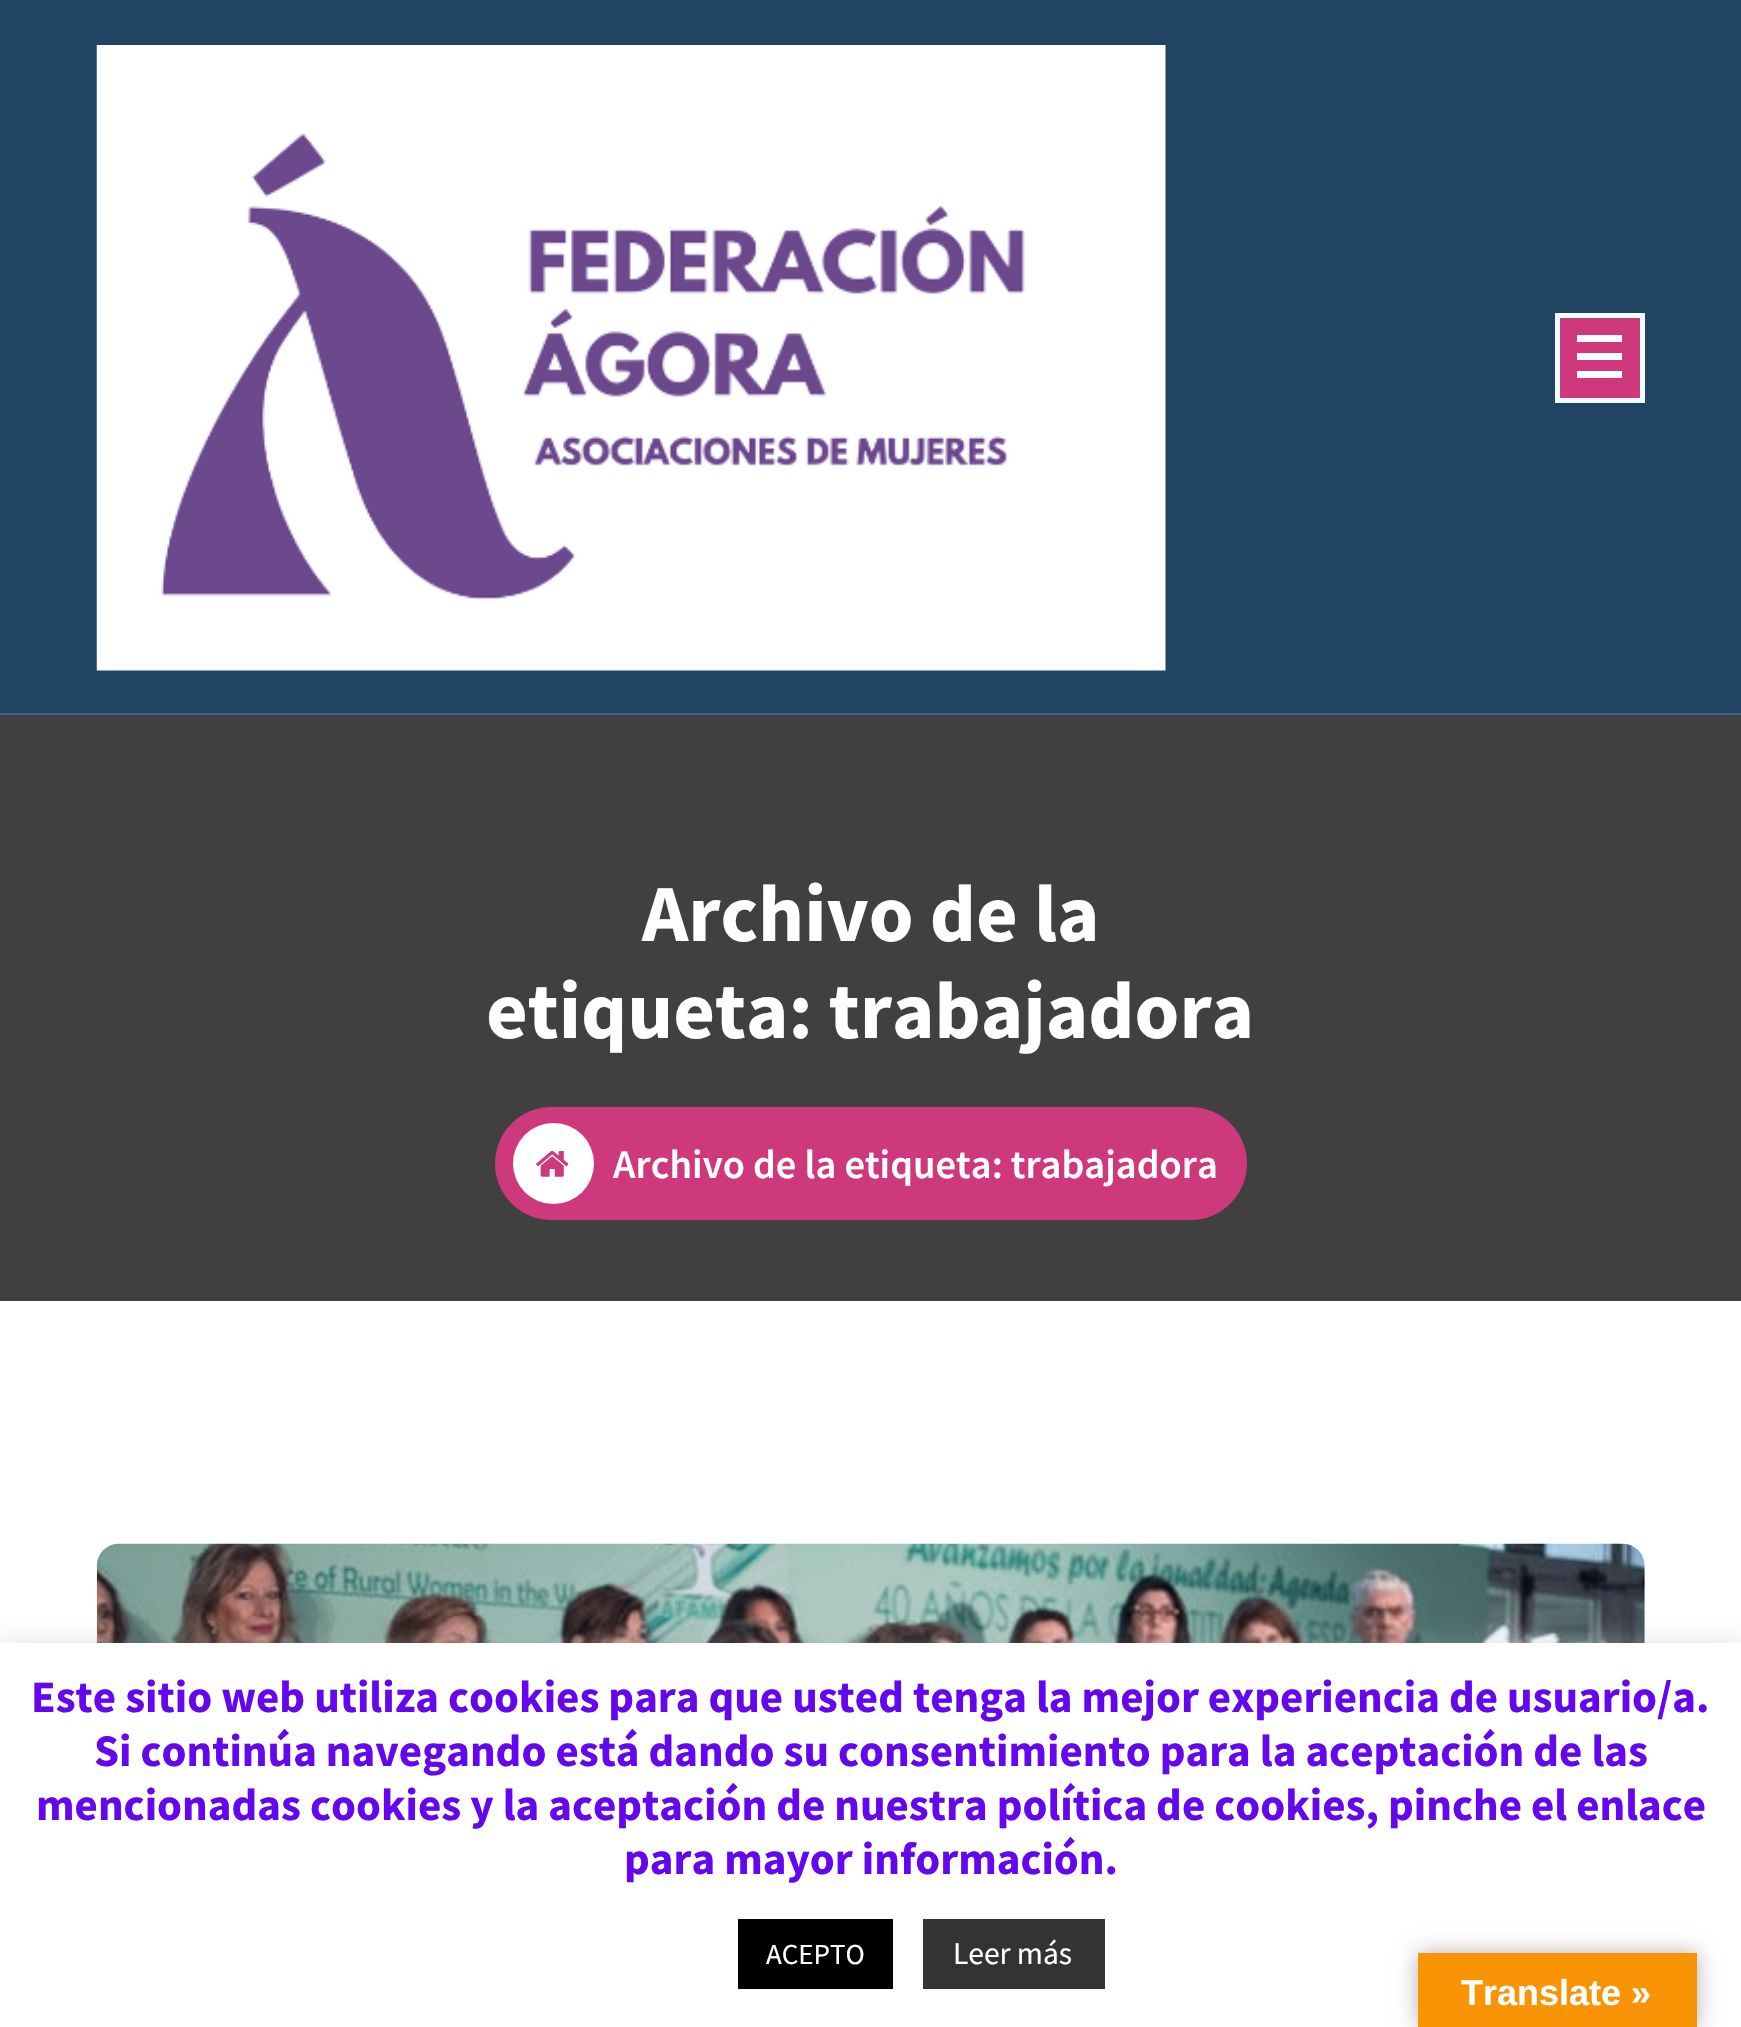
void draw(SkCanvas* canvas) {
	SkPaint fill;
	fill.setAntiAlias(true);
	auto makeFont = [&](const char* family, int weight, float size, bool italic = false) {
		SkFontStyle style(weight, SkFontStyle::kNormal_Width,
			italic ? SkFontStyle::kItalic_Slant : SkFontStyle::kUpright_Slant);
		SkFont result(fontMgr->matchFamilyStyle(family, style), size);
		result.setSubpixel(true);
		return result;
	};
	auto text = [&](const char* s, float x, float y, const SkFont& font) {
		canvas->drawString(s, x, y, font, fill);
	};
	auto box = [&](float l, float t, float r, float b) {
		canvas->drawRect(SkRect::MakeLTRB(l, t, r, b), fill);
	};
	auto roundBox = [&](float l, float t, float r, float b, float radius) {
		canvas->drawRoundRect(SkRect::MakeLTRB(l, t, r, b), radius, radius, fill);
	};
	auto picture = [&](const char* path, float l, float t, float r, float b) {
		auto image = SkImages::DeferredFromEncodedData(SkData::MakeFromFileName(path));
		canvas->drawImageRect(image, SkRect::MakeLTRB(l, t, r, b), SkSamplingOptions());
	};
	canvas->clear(0xFFFFFFFF);
	fill.setColor(0xFF214462);
	box(0, 0, 1741, 716);
	fill.setColor(0xFF4E6172);
	box(0, 713, 1741, 715);
	picture("image0.png", 96, 45, 1166, 671);
	fill.setColor(0xFFCE397D);
	canvas->drawRect(SkRect::MakeLTRB(1557.5f, 315.5f, 1642.5f, 400.5f), fill);
	fill.setStyle(SkPaint::kStroke_Style);
	fill.setStrokeWidth(5);
	fill.setColor(0xFFEFFFFC);
	canvas->drawRect(SkRect::MakeLTRB(1557.5f, 315.5f, 1642.5f, 400.5f), fill);
	fill.setStyle(SkPaint::kFill_Style);
	fill.setColor(0xFFFFFFFF);
	box(1577, 335, 1622, 342);
	box(1577, 353, 1622, 360);
	box(1577, 371, 1622, 378);
	fill.setColor(0xFF404040);
	box(0, 716, 1741, 1301);
	fill.setColor(0xFFCE397D);
	roundBox(495, 1107, 1247, 1220, 56.5f);
	fill.setColor(0xFFFFFFFF);
	canvas->drawCircle(553.5f, 1163.5f, 40.5f, fill);
	picture("image1.png", 536, 1151, 569, 1177);
	picture("image2.png", 96, 1543, 1645, 1643);
	fill.setColor(0x4DACABAB);
	fill.setMaskFilter(SkMaskFilter::MakeBlur(kNormal_SkBlurStyle, 11));
	canvas->drawRect(SkRect::MakeLTRB(0, 1640, 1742, 2025), fill);
	fill.setMaskFilter(nullptr);
	fill.setColor(0xFFFFFFFF);
	box(0, 1643, 1741, 2027);
	fill.setColor(0xFF000000);
	box(738, 1919, 893, 1989);
	fill.setColor(0xFF333333);
	box(923, 1919, 1105, 1989);
	fill.setColor(0x4D000000);
	fill.setMaskFilter(SkMaskFilter::MakeBlur(kNormal_SkBlurStyle, 10));
	canvas->drawRect(SkRect::MakeLTRB(1418, 1953, 1697, 2027), fill);
	fill.setMaskFilter(nullptr);
	fill.setColor(0xFFF89406);
	box(1418, 1953, 1697, 2027);
	auto font1 = makeFont("Source Sans Pro", 700, 80.75f);
	fill.setColor(0xFFFFFFFF);
	text("Archivo de la", 642, 941, font1);
	text("etiqueta: trabajadora", 486, 1038, font1);
	auto font2 = makeFont("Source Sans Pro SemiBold", 600, 40.5f);
	text("Archivo de la etiqueta: trabajadora", 613, 1178, font2);
	auto font3 = makeFont("Source Sans Pro", 700, 45);
	fill.setColor(0xFF6407EF);
	text("Este sitio web utiliza cookies para que usted tenga la mejor experiencia de usuario/a.", 31, 1712, font3);
	text("Si continúa navegando está dando su consentimiento para la aceptación de las", 94, 1766, font3);
	text("mencionadas cookies y la aceptación de nuestra política de cookies, pinche el enlace", 36, 1820, font3);
	text("para mayor información.", 624, 1874, font3);
	auto font4 = makeFont("Source Sans Pro", 400, 29);
	fill.setColor(0xFFFFFFFF);
	text("ACEPTO", 766, 1964, font4);
	auto font5 = makeFont("Source Sans Pro", 400, 31.5f);
	text("Leer más", 953, 1964, font5);
	auto font6 = makeFont("Liberation Sans", 700, 36);
	text("Translate »", 1461, 2005, font6);
}
